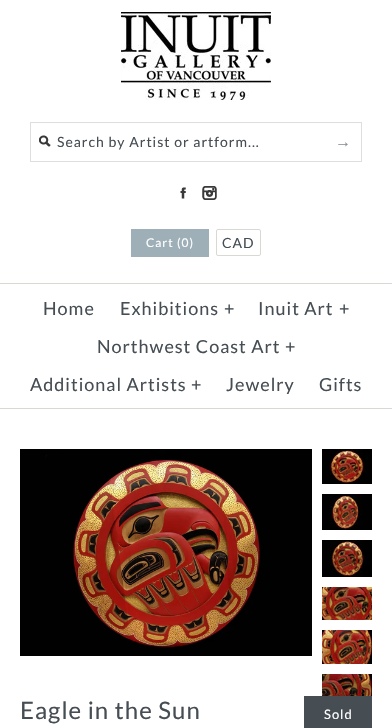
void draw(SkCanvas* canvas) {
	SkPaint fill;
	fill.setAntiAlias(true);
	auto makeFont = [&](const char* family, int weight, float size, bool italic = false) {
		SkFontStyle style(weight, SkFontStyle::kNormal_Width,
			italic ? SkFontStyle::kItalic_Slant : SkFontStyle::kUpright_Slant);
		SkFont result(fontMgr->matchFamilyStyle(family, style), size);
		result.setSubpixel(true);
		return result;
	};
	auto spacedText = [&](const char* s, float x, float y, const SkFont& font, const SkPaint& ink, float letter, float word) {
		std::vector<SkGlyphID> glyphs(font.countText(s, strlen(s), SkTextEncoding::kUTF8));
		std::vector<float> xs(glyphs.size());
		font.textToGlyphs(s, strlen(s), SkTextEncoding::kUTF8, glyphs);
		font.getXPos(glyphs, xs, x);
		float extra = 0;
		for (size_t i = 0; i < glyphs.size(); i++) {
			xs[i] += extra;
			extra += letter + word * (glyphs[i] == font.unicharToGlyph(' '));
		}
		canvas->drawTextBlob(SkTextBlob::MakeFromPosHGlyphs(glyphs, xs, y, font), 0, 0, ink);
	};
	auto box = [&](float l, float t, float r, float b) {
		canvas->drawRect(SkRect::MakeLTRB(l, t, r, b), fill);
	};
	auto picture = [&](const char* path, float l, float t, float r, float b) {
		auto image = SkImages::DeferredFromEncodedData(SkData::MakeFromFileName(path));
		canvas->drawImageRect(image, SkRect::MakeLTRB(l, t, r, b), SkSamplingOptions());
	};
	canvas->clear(0xFFFFFFFF);
	picture("image0.png", 121, 12, 271, 100);
	fill.setStyle(SkPaint::kStroke_Style);
	fill.setStrokeWidth(1);
	fill.setColor(0xFFDEDEDE);
	canvas->drawRect(SkRect::MakeLTRB(30.5f, 122.5f, 361.5f, 161.5f), fill);
	picture("image1.png", 39, 135, 51, 147);
	picture("image2.png", 180, 187, 186, 199);
	picture("image3.png", 202, 186, 217, 200);
	fill.setStyle(SkPaint::kFill_Style);
	fill.setColor(0xFF9EAFB8);
	box(131, 229, 209, 257);
	fill.setStyle(SkPaint::kStroke_Style);
	fill.setColor(0xFFD9D9D4);
	canvas->drawRoundRect(SkRect::MakeLTRB(216.5f, 229.5f, 260.5f, 255.5f), 1.5f, 1.5f, fill);
	fill.setStyle(SkPaint::kFill_Style);
	box(0, 408, 392, 409);
	box(0, 283, 392, 284);
	picture("image4.png", 20, 449, 312, 656);
	picture("image5.png", 322, 449, 372, 484);
	picture("image6.png", 322, 494, 372, 530);
	picture("image7.png", 322, 540, 372, 577);
	picture("image8.png", 322, 587, 372, 620);
	picture("image9.png", 322, 630, 372, 664);
	picture("image10.png", 322, 674, 372, 696);
	fill.setColor(0xFF464E54);
	box(304, 696, 372, 728);
	auto font1 = makeFont("Lato", 400, 14);
	spacedText("Search by Artist or artform...", 57, 147, font1, fill, 1, 0);
	auto font2 = makeFont("Liberation Serif", 400, 16);
	fill.setColor(0xFF8A8F93);
	spacedText("→", 335, 147, font2, fill, 1, 0);
	auto font3 = makeFont("Lato", 400, 12);
	fill.setColor(0xFFFFFFFF);
	spacedText("Cart (0)", 146, 247, font3, fill, 1, 0);
	fill.setColor(0xFF464E54);
	spacedText("CAD", 222, 248, font1, fill, 1, 0);
	auto font4 = makeFont("Lato", 400, 18);
	spacedText("Home", 43, 315, font4, fill, 1, 0);
	spacedText("Exhibitions", 120, 315, font4, fill, 1, 0);
	spacedText("+", 224, 315, font4, fill, 1, 0);
	spacedText("Inuit Art", 258, 315, font4, fill, 1, 0);
	spacedText("+", 339, 315, font4, fill, 1, 0);
	spacedText("Northwest Coast Art", 97, 353, font4, fill, 1, 0);
	spacedText("+", 285, 353, font4, fill, 1, 0);
	spacedText("Additional Artists", 30, 391, font4, fill, 1, 0);
	spacedText("+", 191, 391, font4, fill, 1, 0);
	spacedText("Jewelry", 226, 391, font4, fill, 1, 0);
	spacedText("Gifts", 319, 391, font4, fill, 1, 0);
	auto font5 = makeFont("Lato", 400, 24);
	spacedText("Eagle in the Sun", 20, 719, font5, fill, 1, 0);
	auto font6 = makeFont("Lato", 400, 13);
	fill.setColor(0xFFFFFFFF);
	spacedText("Sold", 324, 719, font6, fill, 1, 0);
}
